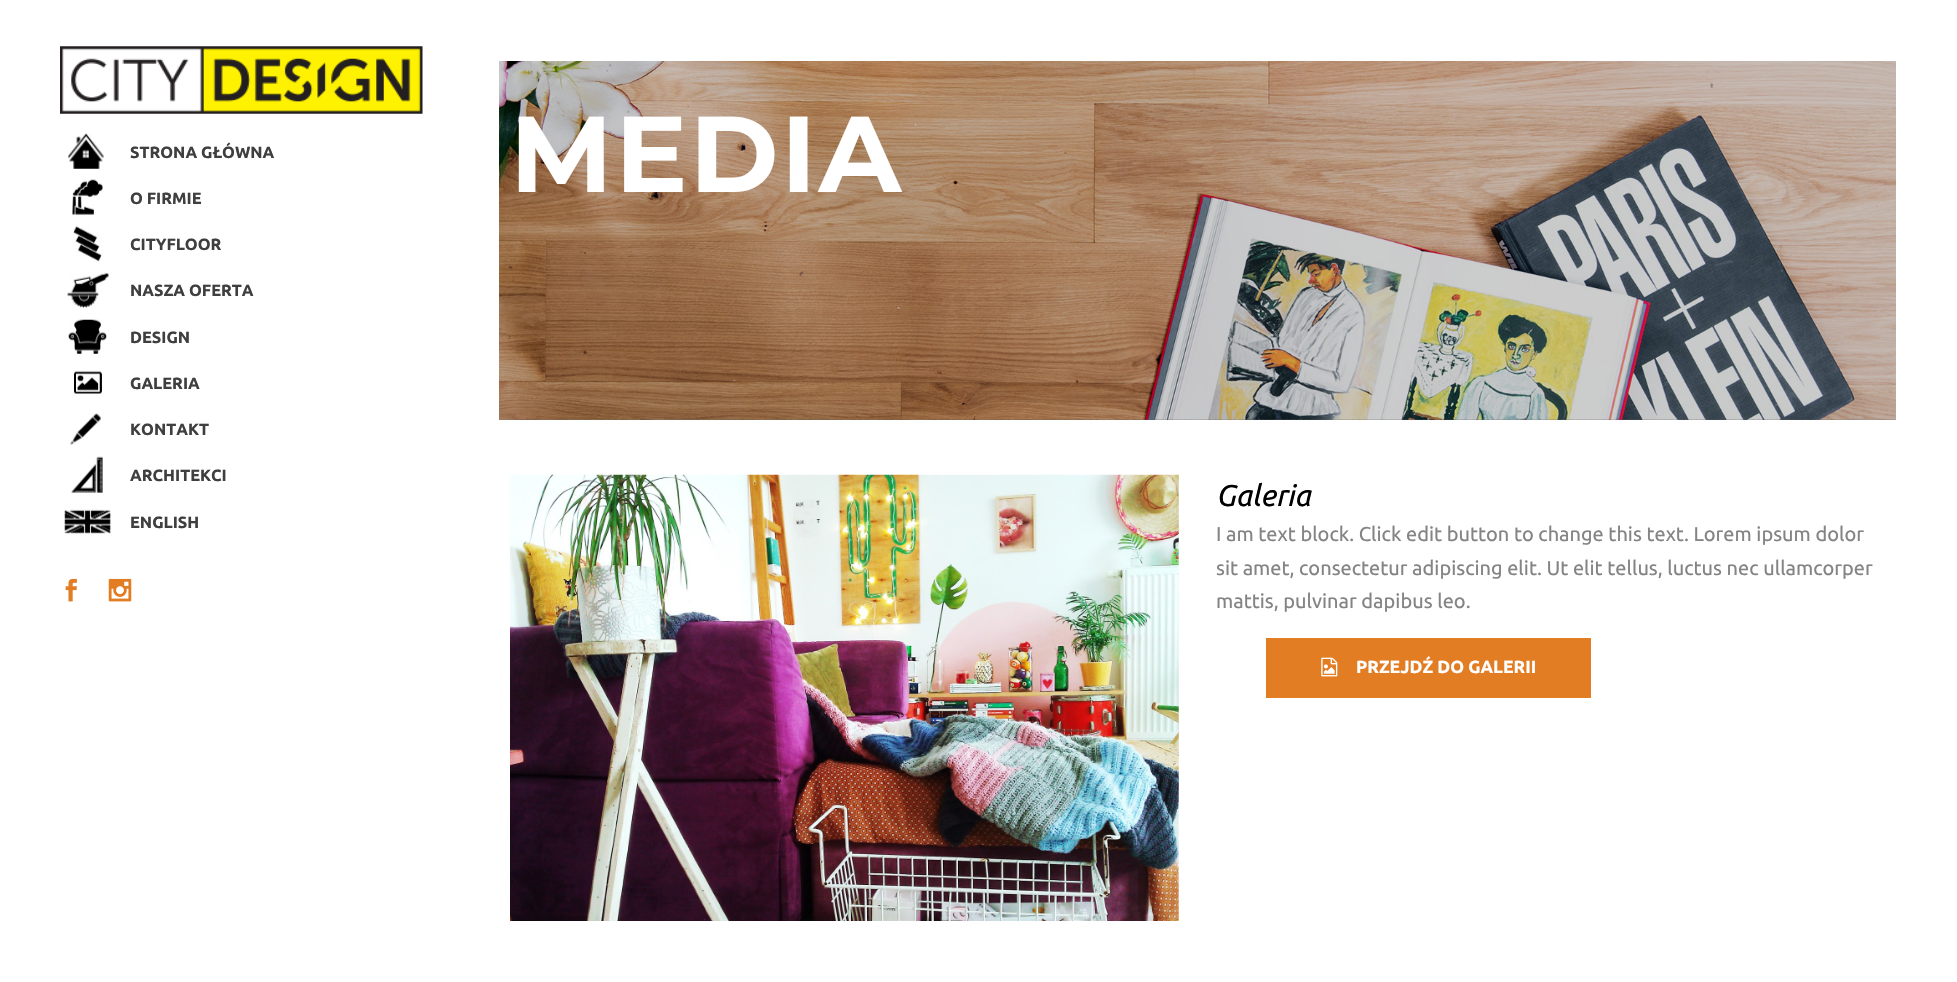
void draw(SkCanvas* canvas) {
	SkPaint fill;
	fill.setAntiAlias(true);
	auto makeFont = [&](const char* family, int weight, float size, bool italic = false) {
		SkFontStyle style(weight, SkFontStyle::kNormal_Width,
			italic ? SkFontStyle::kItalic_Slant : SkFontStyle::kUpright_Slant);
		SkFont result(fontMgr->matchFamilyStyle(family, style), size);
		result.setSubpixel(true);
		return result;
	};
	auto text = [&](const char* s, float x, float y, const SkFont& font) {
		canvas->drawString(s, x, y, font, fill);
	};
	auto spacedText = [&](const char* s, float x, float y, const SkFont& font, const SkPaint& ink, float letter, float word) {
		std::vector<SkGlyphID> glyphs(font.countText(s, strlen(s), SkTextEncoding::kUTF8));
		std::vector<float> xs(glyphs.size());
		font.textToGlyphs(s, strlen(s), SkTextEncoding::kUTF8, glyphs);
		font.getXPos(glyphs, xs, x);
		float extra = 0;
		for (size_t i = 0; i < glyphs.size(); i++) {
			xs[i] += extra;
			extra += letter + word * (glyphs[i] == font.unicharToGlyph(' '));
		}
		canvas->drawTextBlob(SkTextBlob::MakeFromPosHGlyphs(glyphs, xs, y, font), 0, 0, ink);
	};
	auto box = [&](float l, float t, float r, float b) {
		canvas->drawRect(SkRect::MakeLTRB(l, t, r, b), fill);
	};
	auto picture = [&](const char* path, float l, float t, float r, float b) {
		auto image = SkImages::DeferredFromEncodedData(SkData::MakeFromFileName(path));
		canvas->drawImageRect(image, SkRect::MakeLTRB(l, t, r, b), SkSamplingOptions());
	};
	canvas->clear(0xFFFFFFFF);
	picture("image0.png", 60, 46, 423, 114);
	picture("image1.png", 68, 133, 104, 169);
	picture("image2.png", 72, 179, 103, 215);
	picture("image3.png", 73, 225, 102, 262);
	picture("image4.png", 67, 272, 109, 308);
	picture("image5.png", 68, 319, 107, 354);
	picture("image6.png", 74, 370, 102, 394);
	picture("image7.png", 70, 413, 101, 445);
	picture("image8.png", 71, 456, 103, 493);
	picture("image9.png", 64, 509, 111, 534);
	picture("image10.png", 65, 578, 77, 602);
	picture("image11.png", 108, 578, 132, 602);
	picture("image12.png", 499, 419, 1896, 420);
	picture("image13.png", 499, 61, 1896, 420);
	picture("image14.png", 510, 474, 1179, 921);
	fill.setColor(0xFFE27D23);
	box(1266, 638, 1591, 698);
	picture("image15.png", 1321, 657, 1338, 677);
	auto font1 = makeFont("Ubuntu", 700, 16.25f);
	fill.setColor(0xFF3F3F3F);
	text("STRONA GŁÓWNA", 130, 158, font1);
	text("O FIRMIE", 130, 204, font1);
	text("CITYFLOOR", 130, 250, font1);
	text("NASZA OFERTA", 130, 296, font1);
	text("DESIGN", 130, 343, font1);
	text("GALERIA", 130, 389, font1);
	text("KONTAKT", 130, 435, font1);
	text("ARCHITEKCI", 130, 481, font1);
	text("ENGLISH", 130, 528, font1);
	auto font2 = makeFont("Montserrat", 700, 107.5f);
	fill.setColor(0xFFFFFFFF);
	spacedText("MEDIA", 510, 192, font2, fill, 2.5f, 0);
	auto font3 = makeFont("Ubuntu", 400, 30, true);
	fill.setColor(0xFF000000);
	text("Galeria", 1216, 506, font3);
	auto font4 = makeFont("Ubuntu", 400, 20);
	fill.setColor(0xFF848484);
	text("I am text block. Click edit button to change this text. Lorem ipsum dolor", 1216, 541, font4);
	text("sit amet, consectetur adipiscing elit. Ut elit tellus, luctus nec ullamcorper", 1216, 575, font4);
	text("mattis, pulvinar dapibus leo.", 1216, 608, font4);
	auto font5 = makeFont("Ubuntu", 700, 17.5f);
	fill.setColor(0xFFFFFFFF);
	text("PRZEJDŹ DO GALERII", 1356, 673, font5);
}
